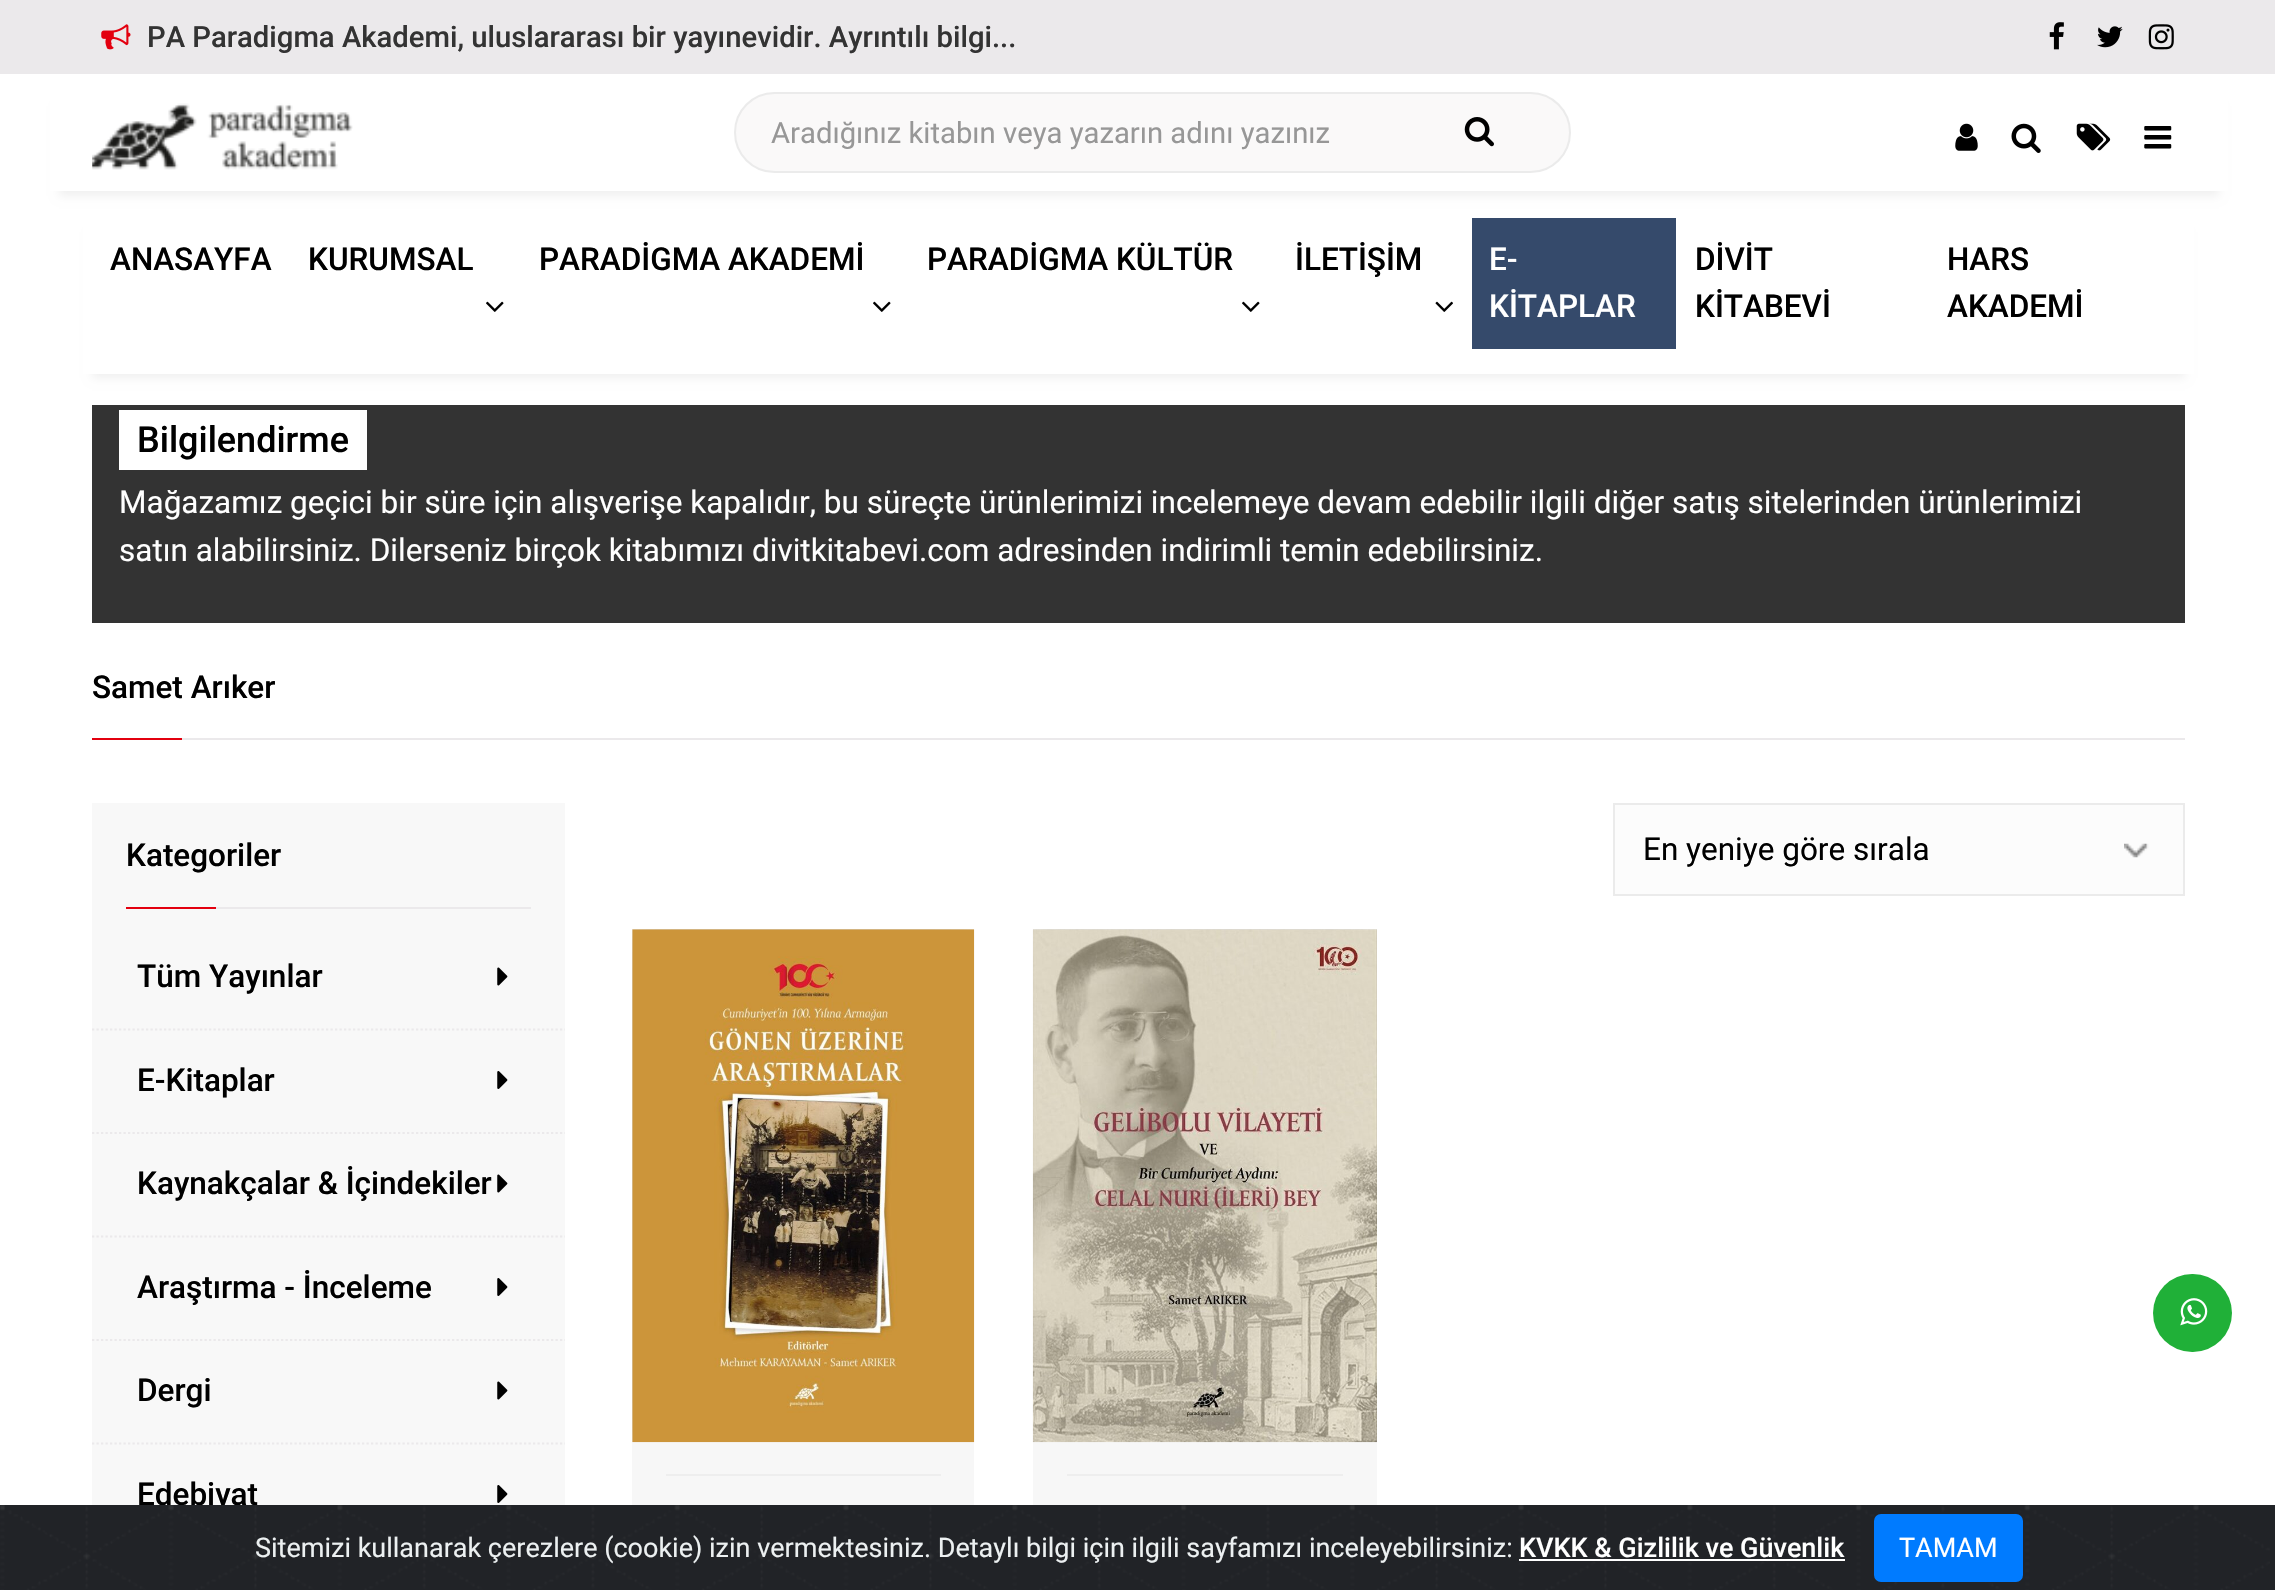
void draw(SkCanvas* canvas) {
	SkPaint fill;
	fill.setAntiAlias(true);
	auto makeFont = [&](const char* family, int weight, float size, bool italic = false) {
		SkFontStyle style(weight, SkFontStyle::kNormal_Width,
			italic ? SkFontStyle::kItalic_Slant : SkFontStyle::kUpright_Slant);
		SkFont result(fontMgr->matchFamilyStyle(family, style), size);
		result.setSubpixel(true);
		return result;
	};
	auto text = [&](const char* s, float x, float y, const SkFont& font) {
		canvas->drawString(s, x, y, font, fill);
	};
	auto box = [&](float l, float t, float r, float b) {
		canvas->drawRect(SkRect::MakeLTRB(l, t, r, b), fill);
	};
	auto roundBox = [&](float l, float t, float r, float b, float radius) {
		canvas->drawRoundRect(SkRect::MakeLTRB(l, t, r, b), radius, radius, fill);
	};
	auto picture = [&](const char* path, float l, float t, float r, float b) {
		auto image = SkImages::DeferredFromEncodedData(SkData::MakeFromFileName(path));
		canvas->drawImageRect(image, SkRect::MakeLTRB(l, t, r, b), SkSamplingOptions());
	};
	canvas->clear(0xFFFFFFFF);
	fill.setColor(0xFFEBE9EB);
	box(0, 0, 2275, 74);
	picture("image0.png", 101, 24, 131, 50);
	picture("image1.png", 2049, 22, 2064, 50);
	picture("image2.png", 2097, 26, 2123, 48);
	picture("image3.png", 2148, 24, 2174, 50);
	canvas->save();
	canvas->clipPath(SkPathBuilder(SkPathFillType::kEvenOdd).moveTo(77, 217).lineTo(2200, 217).lineTo(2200, 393).lineTo(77, 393).close().moveTo(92, 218).lineTo(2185, 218).lineTo(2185, 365).lineTo(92, 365).close().detach(), true);
	fill.setColor(0xFFF0F0F0);
	fill.setMaskFilter(SkMaskFilter::MakeBlur(kNormal_SkBlurStyle, 4.5f));
	canvas->drawRect(SkRect::MakeLTRB(92, 232, 2185, 378), fill);
	fill.setMaskFilter(nullptr);
	canvas->restore();
	fill.setStyle(SkPaint::kStroke_Style);
	fill.setStrokeWidth(9);
	fill.setColor(0xFFFFFFFF);
	canvas->drawRect(SkRect::MakeLTRB(87.5f, 213.5f, 2189.5f, 369.5f), fill);
	canvas->save();
	canvas->clipPath(SkPathBuilder(SkPathFillType::kEvenOdd).moveTo(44, 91).lineTo(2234, 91).lineTo(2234, 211).lineTo(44, 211).close().moveTo(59, 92).lineTo(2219, 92).lineTo(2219, 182).lineTo(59, 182).close().detach(), true);
	fill.setStyle(SkPaint::kFill_Style);
	fill.setColor(0xFFF0F0F0);
	fill.setMaskFilter(SkMaskFilter::MakeBlur(kNormal_SkBlurStyle, 4.5f));
	canvas->drawRect(SkRect::MakeLTRB(59, 106, 2219, 196), fill);
	fill.setMaskFilter(nullptr);
	canvas->restore();
	fill.setStyle(SkPaint::kStroke_Style);
	fill.setColor(0xFFFFFFFF);
	canvas->drawRect(SkRect::MakeLTRB(54.5f, 87.5f, 2223.5f, 186.5f), fill);
	picture("image4.png", 92, 103, 353, 170);
	fill.setStyle(SkPaint::kFill_Style);
	fill.setColor(0xFFFAF9F9);
	canvas->drawRoundRect(SkRect::MakeLTRB(735, 93, 1570, 172), 39.5f, 39.5f, fill);
	fill.setStyle(SkPaint::kStroke_Style);
	fill.setStrokeWidth(2);
	fill.setColor(0xFFEBEBEB);
	canvas->drawRoundRect(SkRect::MakeLTRB(735, 93, 1570, 172), 39.5f, 39.5f, fill);
	picture("image5.png", 1464, 117, 1494, 147);
	picture("image6.png", 1955, 123, 1978, 151);
	picture("image7.png", 2011, 123, 2041, 153);
	picture("image8.png", 2076, 123, 2111, 151);
	picture("image9.png", 2144, 126, 2172, 149);
	picture("image10.png", 486, 301, 504, 312);
	picture("image10.png", 873, 301, 891, 312);
	picture("image10.png", 1242, 301, 1260, 312);
	picture("image11.png", 1435, 301, 1453, 312);
	fill.setStyle(SkPaint::kFill_Style);
	fill.setColor(0xFF354A6B);
	box(1472, 218, 1676, 349);
	fill.setColor(0xFF333333);
	box(92, 405, 2185, 623);
	fill.setColor(0xFFFFFFFF);
	box(119, 410, 367, 470);
	fill.setColor(0xFFE3000F);
	box(92, 738, 182, 740);
	fill.setColor(0xFFEBE9EB);
	box(182, 738, 2185, 740);
	fill.setColor(0xFFF8F8F8);
	box(92, 803, 565, 1505);
	fill.setColor(0xFFE3000F);
	box(126, 907, 216, 909);
	fill.setColor(0xFFEBE9EB);
	box(216, 907, 531, 909);
	fill.setStyle(SkPaint::kStroke_Style);
	fill.setStrokeWidth(2.2f);
	fill.setPathEffect(SkDashPathEffect::Make({{2.25f, 2.25f}}, 0));
	canvas->drawPath(SkPathBuilder().moveTo(92, 1029.5f).lineTo(565, 1029.5f).detach(), fill);
	fill.setPathEffect(nullptr);
	picture("image12.png", 497, 967, 508, 986);
	fill.setPathEffect(SkDashPathEffect::Make({{2.25f, 2.25f}}, 0));
	canvas->drawPath(SkPathBuilder().moveTo(92, 1133).lineTo(565, 1133).detach(), fill);
	fill.setPathEffect(nullptr);
	picture("image13.png", 497, 1071, 508, 1089);
	fill.setPathEffect(SkDashPathEffect::Make({{2.25f, 2.25f}}, 0));
	canvas->drawPath(SkPathBuilder().moveTo(92, 1236.5f).lineTo(565, 1236.5f).detach(), fill);
	fill.setPathEffect(nullptr);
	picture("image12.png", 497, 1174, 508, 1193);
	fill.setPathEffect(SkDashPathEffect::Make({{2.25f, 2.25f}}, 0));
	canvas->drawPath(SkPathBuilder().moveTo(92, 1340).lineTo(565, 1340).detach(), fill);
	fill.setPathEffect(nullptr);
	picture("image13.png", 497, 1278, 508, 1296);
	fill.setPathEffect(SkDashPathEffect::Make({{2.25f, 2.25f}}, 0));
	canvas->drawPath(SkPathBuilder().moveTo(92, 1443.5f).lineTo(565, 1443.5f).detach(), fill);
	fill.setPathEffect(nullptr);
	picture("image12.png", 497, 1381, 508, 1400);
	picture("image13.png", 497, 1485, 508, 1503);
	fill.setStyle(SkPaint::kFill_Style);
	fill.setColor(0xFFFCFCFC);
	box(1615, 805, 2183, 894);
	picture("image14.png", 2124, 843, 2149, 858);
	fill.setStyle(SkPaint::kStroke_Style);
	fill.setStrokeWidth(2);
	fill.setColor(0xFFEBEBEB);
	canvas->drawRect(SkRect::MakeLTRB(1614, 804, 2184, 895), fill);
	fill.setStyle(SkPaint::kFill_Style);
	fill.setColor(0xFFF7F7F7);
	box(632, 929, 974, 1505);
	fill.setColor(0xFFEEEEEE);
	box(666, 1474, 941, 1476);
	canvas->save();
	canvas->clipRect(SkRect::MakeLTRB(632, 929, 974, 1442));
	fill.setColor(0x33000000);
	fill.setMaskFilter(SkMaskFilter::MakeBlur(kNormal_SkBlurStyle, 16));
	canvas->drawRect(SkRect::MakeLTRB(632, 929, 974, 1442), fill);
	fill.setMaskFilter(nullptr);
	canvas->restore();
	picture("image15.png", 632, 929, 975, 1443);
	fill.setColor(0xFFF7F7F7);
	box(1033, 929, 1377, 1505);
	fill.setColor(0xFFEEEEEE);
	box(1067, 1474, 1343, 1476);
	canvas->save();
	canvas->clipRect(SkRect::MakeLTRB(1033, 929, 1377, 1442));
	fill.setColor(0x33000000);
	fill.setMaskFilter(SkMaskFilter::MakeBlur(kNormal_SkBlurStyle, 16));
	canvas->drawRect(SkRect::MakeLTRB(1033, 929, 1377, 1442), fill);
	fill.setMaskFilter(nullptr);
	canvas->restore();
	picture("image16.png", 1032, 929, 1377, 1443);
	fill.setColor(0xFF20B038);
	roundBox(2153, 1274, 2232, 1352, 39);
	picture("image17.png", 2180, 1298, 2208, 1326);
	fill.setColor(0xFF212327);
	box(2270, 1505, 2275, 1590);
	auto font1 = makeFont("Roboto", 500, 29.25f);
	fill.setColor(0xFF333333);
	text("PA Paradigma Akademi, uluslararası bir yayınevidir. Ayrıntılı bilgi...", 147, 47, font1);
	auto font2 = makeFont("Roboto", 400, 29.25f);
	fill.setColor(0xFF979797);
	text("Aradığınız kitabın veya yazarın adını yazınız", 771, 143, font2);
	auto font3 = makeFont("Roboto", 500, 31.5f);
	fill.setColor(0xFF000000);
	text("ANASAYFA", 110, 270, font3);
	text("KURUMSAL", 308, 270, font3);
	text("PARADİGMA AKADEMİ", 539, 270, font3);
	text("PARADİGMA KÜLTÜR", 927, 270, font3);
	text("İLETİŞİM", 1295, 270, font3);
	fill.setColor(0xFFFFFFFF);
	text("E-", 1489, 270, font3);
	text("KİTAPLAR", 1489, 317, font3);
	fill.setColor(0xFF000000);
	text("DİVİT", 1695, 270, font3);
	text("KİTABEVİ", 1695, 317, font3);
	text("HARS", 1947, 270, font3);
	text("AKADEMİ", 1947, 317, font3);
	auto font4 = makeFont("Roboto", 500, 36);
	text("Bilgilendirme", 137, 452, font4);
	auto font5 = makeFont("Roboto", 400, 31.5f);
	fill.setColor(0xFFFFFFFF);
	text("Mağazamız geçici bir süre için alışverişe kapalıdır, bu süreçte ürünlerimizi incelemeye devam edebilir ilgili diğer satış sitelerinden ürünlerimizi", 119, 513, font5);
	text("satın alabilirsiniz. Dilerseniz birçok kitabımızı divitkitabevi.com adresinden indirimli temin edebilirsiniz.", 119, 561, font5);
	fill.setColor(0xFF000000);
	text("Samet Arıker", 92, 698, font3);
	text("Kategoriler", 126, 866, font3);
	text("Tüm Yayınlar", 137, 987, font3);
	text("E-Kitaplar", 137, 1091, font3);
	text("Kaynakçalar & İçindekiler", 137, 1194, font3);
	text("Araştırma - İnceleme", 137, 1298, font3);
	text("Dergi", 137, 1401, font3);
	text("Edebiyat", 137, 1505, font3);
	text("En yeniye göre sırala", 1643, 860, font5);
	picture("image18.png", 0, 1505, 2270, 1590);
	auto font6 = makeFont("Roboto", 400, 27);
	fill.setColor(0xFFECF0F1);
	text("Sitemizi kullanarak çerezlere (cookie) izin vermektesiniz. Detaylı bilgi için ilgili sayfamızı inceleyebilirsiniz:", 255, 1557, font6);
	auto font7 = makeFont("Roboto", 500, 27);
	fill.setColor(0xFFFFFFFF);
	text("KVKK & Gizlilik ve Güvenlik", 1519, 1557, font7);
	box(1519, 1559, 1845, 1561);
	fill.setColor(0xFF007BFF);
	canvas->drawRoundRect(SkRect::MakeLTRB(1875, 1515, 2022, 1581), 6, 6, fill);
	fill.setStyle(SkPaint::kStroke_Style);
	canvas->drawRoundRect(SkRect::MakeLTRB(1875, 1515, 2022, 1581), 6, 6, fill);
	fill.setStyle(SkPaint::kFill_Style);
	fill.setColor(0xFFFFFFFF);
	text("TAMAM", 1899, 1557, font6);
}
